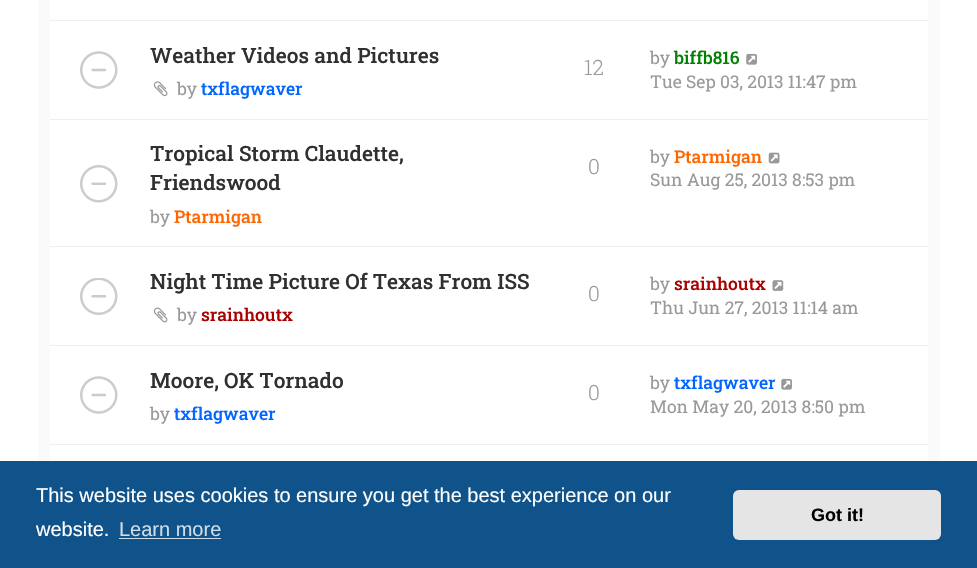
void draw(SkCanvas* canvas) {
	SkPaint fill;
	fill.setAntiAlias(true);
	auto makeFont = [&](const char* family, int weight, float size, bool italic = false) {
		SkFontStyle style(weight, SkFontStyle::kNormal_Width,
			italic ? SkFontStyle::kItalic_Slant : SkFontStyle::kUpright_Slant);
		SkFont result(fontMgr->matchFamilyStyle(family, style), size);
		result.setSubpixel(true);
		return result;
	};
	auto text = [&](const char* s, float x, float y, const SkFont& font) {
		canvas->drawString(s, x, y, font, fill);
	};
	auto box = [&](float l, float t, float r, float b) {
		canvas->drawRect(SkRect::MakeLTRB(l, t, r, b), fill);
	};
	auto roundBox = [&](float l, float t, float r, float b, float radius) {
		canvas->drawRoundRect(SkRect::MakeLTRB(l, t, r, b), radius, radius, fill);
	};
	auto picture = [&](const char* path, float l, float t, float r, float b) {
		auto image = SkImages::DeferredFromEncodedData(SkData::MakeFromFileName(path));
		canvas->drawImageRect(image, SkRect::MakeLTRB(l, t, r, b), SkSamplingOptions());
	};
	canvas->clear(0xFFFFFFFF);
	fill.setColor(0xFFFAFAFA);
	box(38, 0, 940, 461);
	fill.setColor(0xFFFFFFFF);
	box(50, 0, 928, 20);
	fill.setColor(0xFFECF0F1);
	box(50, 20, 928, 21);
	fill.setColor(0xFFFFFFFF);
	box(50, 21, 928, 119);
	fill.setColor(0xFFECF0F1);
	box(50, 119, 928, 120);
	picture("image0.png", 80, 51, 118, 89);
	picture("image1.png", 153, 81, 168, 97);
	picture("image2.png", 746, 53, 757, 65);
	fill.setColor(0xFFFFFFFF);
	box(50, 120, 928, 345);
	fill.setColor(0xFFECF0F1);
	box(50, 246, 928, 247);
	picture("image3.png", 80, 165, 118, 203);
	picture("image4.png", 768, 152, 780, 164);
	box(50, 345, 928, 346);
	picture("image5.png", 80, 278, 118, 315);
	picture("image6.png", 153, 307, 168, 323);
	picture("image7.png", 772, 280, 784, 291);
	fill.setColor(0xFFFFFFFF);
	box(50, 346, 928, 444);
	fill.setColor(0xFFECF0F1);
	box(50, 444, 928, 445);
	picture("image0.png", 80, 376, 118, 414);
	picture("image2.png", 781, 378, 792, 390);
	fill.setColor(0xFFFFFFFF);
	box(50, 445, 928, 461);
	fill.setColor(0xFF0F538A);
	box(0, 461, 977, 568);
	fill.setColor(0xFFCFDDE8);
	box(119, 538, 221, 539);
	fill.setColor(0xFFE5E5E5);
	roundBox(733, 490, 941, 540, 6);
	auto font1 = makeFont("Roboto Slab", 500, 21);
	fill.setColor(0xFF303030);
	text("Weather Videos and Pictures", 150, 63, font1);
	auto font2 = makeFont("Roboto Slab", 400, 17.5f);
	fill.setColor(0xFF999999);
	text("by", 177, 95, font2);
	auto font3 = makeFont("Roboto Slab", 500, 17.5f);
	fill.setColor(0xFF0066FF);
	text("txflagwaver", 201, 95, font3);
	auto font4 = makeFont("Roboto Slab", 300, 21);
	fill.setColor(0xFF999999);
	text("12", 584, 75, font4);
	text("by", 650, 64, font2);
	fill.setColor(0xFF008000);
	text("biffb816", 674, 64, font3);
	fill.setColor(0xFF999999);
	text("Tue Sep 03, 2013 11:47 pm", 650, 88, font2);
	fill.setColor(0xFF303030);
	text("Tropical Storm Claudette,", 150, 161, font1);
	text("Friendswood", 150, 190, font1);
	fill.setColor(0xFF999999);
	text("by", 150, 223, font2);
	fill.setColor(0xFFFF6600);
	text("Ptarmigan", 174, 223, font3);
	fill.setColor(0xFF999999);
	text("0", 588, 174, font4);
	text("by", 650, 163, font2);
	fill.setColor(0xFFFF6600);
	text("Ptarmigan", 674, 163, font3);
	fill.setColor(0xFF999999);
	text("Sun Aug 25, 2013 8:53 pm", 650, 186, font2);
	fill.setColor(0xFF303030);
	text("Night Time Picture Of Texas From ISS", 150, 289, font1);
	fill.setColor(0xFF999999);
	text("by", 177, 321, font2);
	fill.setColor(0xFFAA0000);
	text("srainhoutx", 201, 321, font3);
	fill.setColor(0xFF999999);
	text("0", 588, 301, font4);
	text("by", 650, 290, font2);
	fill.setColor(0xFFAA0000);
	text("srainhoutx", 674, 290, font3);
	fill.setColor(0xFF999999);
	text("Thu Jun 27, 2013 11:14 am", 650, 314, font2);
	fill.setColor(0xFF303030);
	text("Moore, OK Tornado", 150, 388, font1);
	fill.setColor(0xFF999999);
	text("by", 150, 420, font2);
	fill.setColor(0xFF0066FF);
	text("txflagwaver", 174, 420, font3);
	fill.setColor(0xFF999999);
	text("0", 588, 400, font4);
	text("by", 650, 389, font2);
	fill.setColor(0xFF0066FF);
	text("txflagwaver", 674, 389, font3);
	fill.setColor(0xFF999999);
	text("Mon May 20, 2013 8:50 pm", 650, 413, font2);
	auto font5 = makeFont("Liberation Sans", 400, 20);
	fill.setColor(0xFFFFFFFF);
	text("This website uses cookies to ensure you get the best experience on our", 36, 502, font5);
	text("website.", 36, 536, font5);
	fill.setColor(0xFFCFDDE8);
	text("Learn more", 119, 536, font5);
	auto font6 = makeFont("Liberation Sans", 700, 18);
	fill.setColor(0xFF000000);
	text("Got it!", 811, 521, font6);
}
